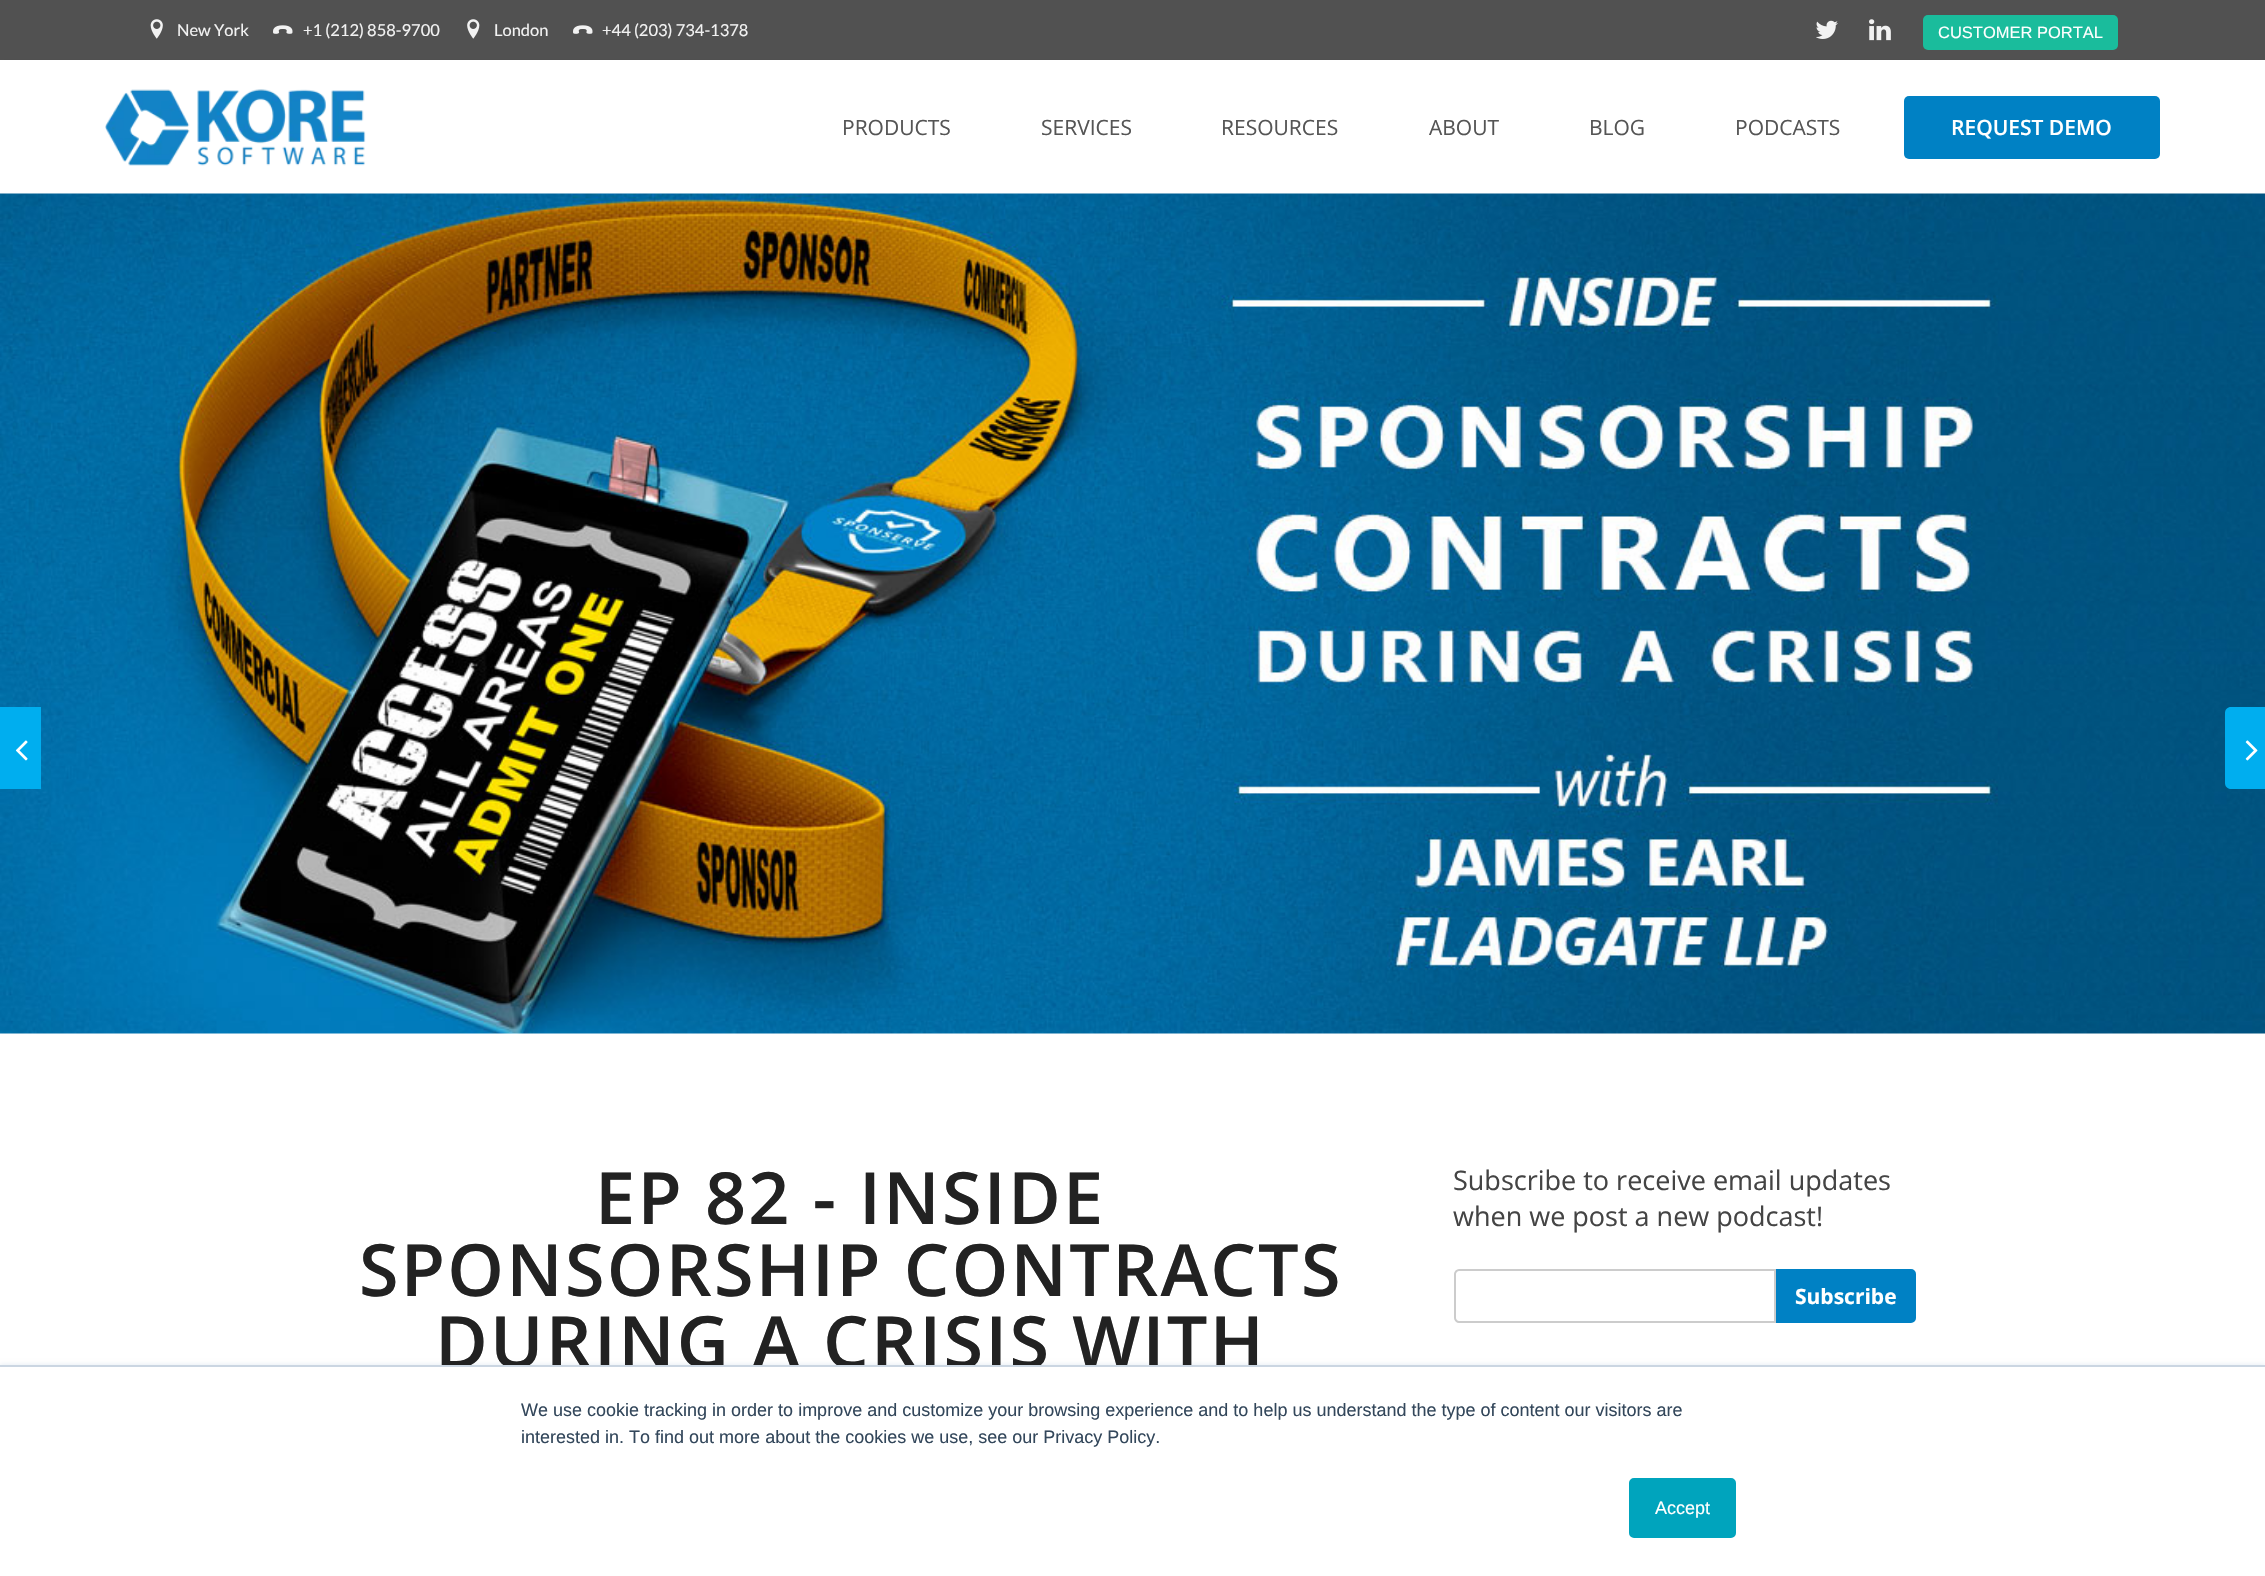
void draw(SkCanvas* canvas) {
	SkPaint fill;
	fill.setAntiAlias(true);
	auto makeFont = [&](const char* family, int weight, float size, bool italic = false) {
		SkFontStyle style(weight, SkFontStyle::kNormal_Width,
			italic ? SkFontStyle::kItalic_Slant : SkFontStyle::kUpright_Slant);
		SkFont result(fontMgr->matchFamilyStyle(family, style), size);
		result.setSubpixel(true);
		return result;
	};
	auto text = [&](const char* s, float x, float y, const SkFont& font) {
		canvas->drawString(s, x, y, font, fill);
	};
	auto spacedText = [&](const char* s, float x, float y, const SkFont& font, const SkPaint& ink, float letter, float word) {
		std::vector<SkGlyphID> glyphs(font.countText(s, strlen(s), SkTextEncoding::kUTF8));
		std::vector<float> xs(glyphs.size());
		font.textToGlyphs(s, strlen(s), SkTextEncoding::kUTF8, glyphs);
		font.getXPos(glyphs, xs, x);
		float extra = 0;
		for (size_t i = 0; i < glyphs.size(); i++) {
			xs[i] += extra;
			extra += letter + word * (glyphs[i] == font.unicharToGlyph(' '));
		}
		canvas->drawTextBlob(SkTextBlob::MakeFromPosHGlyphs(glyphs, xs, y, font), 0, 0, ink);
	};
	auto box = [&](float l, float t, float r, float b) {
		canvas->drawRect(SkRect::MakeLTRB(l, t, r, b), fill);
	};
	auto roundBox = [&](float l, float t, float r, float b, float radius) {
		canvas->drawRoundRect(SkRect::MakeLTRB(l, t, r, b), radius, radius, fill);
	};
	auto picture = [&](const char* path, float l, float t, float r, float b) {
		auto image = SkImages::DeferredFromEncodedData(SkData::MakeFromFileName(path));
		canvas->drawImageRect(image, SkRect::MakeLTRB(l, t, r, b), SkSamplingOptions());
	};
	canvas->clear(0xFFFFFFFF);
	fill.setColor(0xFF515151);
	box(0, 0, 2265, 60);
	picture("image0.png", 150, 19, 163, 39);
	picture("image1.png", 273, 25, 293, 34);
	picture("image2.png", 467, 19, 480, 39);
	picture("image1.png", 573, 25, 593, 34);
	picture("image3.png", 1816, 20, 1838, 39);
	picture("image4.png", 1869, 19, 1891, 41);
	fill.setColor(0xFF1ABC9C);
	roundBox(1923, 15, 2118, 50, 5);
	canvas->save();
	canvas->clipPath(SkPathBuilder(SkPathFillType::kEvenOdd).moveTo(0, 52).lineTo(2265, 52).lineTo(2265, 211).lineTo(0, 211).close().moveTo(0, 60).lineTo(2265, 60).lineTo(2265, 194).lineTo(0, 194).close().detach(), true);
	fill.setColor(0x0D000000);
	fill.setMaskFilter(SkMaskFilter::MakeBlur(kNormal_SkBlurStyle, 4));
	canvas->drawRect(SkRect::MakeLTRB(0, 65, 2265, 198), fill);
	fill.setMaskFilter(nullptr);
	canvas->restore();
	fill.setColor(0xE3FFFFFF);
	box(0, 193, 2265, 194);
	picture("image5.png", 105, 89, 366, 166);
	fill.setColor(0xFF0081C4);
	roundBox(1904, 96, 2160, 159, 5);
	picture("image6.png", 0, 193, 2265, 1034);
	fill.setColor(0xFF00AEEF);
	box(0, 707, 41, 789);
	picture("image7.png", 15, 740, 28, 761);
	canvas->drawPath(SkPathBuilder().moveTo(2231, 707).lineTo(2265, 707).lineTo(2265, 789).lineTo(2231, 789).cubicTo(2227.5f, 789, 2225, 786.5f, 2225, 783).lineTo(2225, 713).cubicTo(2225, 709.5f, 2227.5f, 707, 2231, 707).close().detach(), fill);
	picture("image8.png", 2245, 740, 2258, 761);
	fill.setStyle(SkPaint::kStroke_Style);
	fill.setStrokeWidth(2);
	fill.setColor(0xFFCCCCCC);
	canvas->drawPath(SkPathBuilder().moveTo(1459, 1270).lineTo(1775, 1270).lineTo(1775, 1322).lineTo(1459, 1322).cubicTo(1457, 1322, 1455, 1320, 1455, 1318).lineTo(1455, 1274).cubicTo(1455, 1272, 1457, 1270, 1459, 1270).close().detach(), fill);
	fill.setStyle(SkPaint::kFill_Style);
	fill.setColor(0xFF0081C4);
	canvas->drawPath(SkPathBuilder().moveTo(1777.5f, 1270.5f).lineTo(1911, 1270.5f).cubicTo(1913, 1270.5f, 1914.5f, 1272, 1914.5f, 1274).lineTo(1914.5f, 1318).cubicTo(1914.5f, 1320, 1913, 1321.5f, 1911, 1321.5f).lineTo(1777.5f, 1321.5f).close().detach(), fill);
	fill.setStyle(SkPaint::kStroke_Style);
	fill.setStrokeWidth(3);
	canvas->drawPath(SkPathBuilder().moveTo(1777.5f, 1270.5f).lineTo(1911, 1270.5f).cubicTo(1913, 1270.5f, 1914.5f, 1272, 1914.5f, 1274).lineTo(1914.5f, 1318).cubicTo(1914.5f, 1320, 1913, 1321.5f, 1911, 1321.5f).lineTo(1777.5f, 1321.5f).close().detach(), fill);
	fill.setStyle(SkPaint::kFill_Style);
	fill.setColor(0xFFEAF0F6);
	fill.setMaskFilter(SkMaskFilter::MakeBlur(kNormal_SkBlurStyle, 2));
	canvas->drawRect(SkRect::MakeLTRB(0, 1364, 2265, 1575), fill);
	fill.setMaskFilter(nullptr);
	auto font1 = makeFont("Lato", 400, 16.5f);
	fill.setColor(0xFFF2F2F2);
	text("New York", 177, 36, font1);
	text("+1 (212) 858-9700", 303, 36, font1);
	text("London", 494, 36, font1);
	text("+44 (203) 734-1378", 602, 36, font1);
	auto font2 = makeFont("Liberation Sans", 400, 16.5f);
	fill.setColor(0xFFFFFFFF);
	text("CUSTOMER PORTAL", 1938, 38, font2);
	auto font3 = makeFont("Open Sans", 400, 21);
	fill.setColor(0xFF555555);
	text("PRODUCTS", 842, 135, font3);
	text("SERVICES", 1041, 135, font3);
	text("RESOURCES", 1221, 135, font3);
	text("ABOUT", 1429, 135, font3);
	text("BLOG", 1589, 135, font3);
	text("PODCASTS", 1735, 135, font3);
	auto font4 = makeFont("Open Sans", 600, 21);
	fill.setColor(0xFFFFFFFF);
	text("REQUEST DEMO", 1951, 135, font4);
	auto font5 = makeFont("Open Sans", 600, 72);
	fill.setColor(0xFF222222);
	spacedText("EP 82 - INSIDE", 595, 1224, font5, fill, 2.25f, 0);
	spacedText("SPONSORSHIP CONTRACTS", 359, 1296, font5, fill, 2.25f, 0);
	spacedText("DURING A CRISIS WITH", 435, 1368, font5, fill, 2.25f, 0);
	auto font6 = makeFont("Open Sans", 400, 27);
	fill.setColor(0xFF444444);
	text("Subscribe to receive email updates", 1453, 1190, font6);
	text("when we post a new podcast!", 1453, 1226, font6);
	auto font7 = makeFont("Open Sans", 700, 21);
	fill.setColor(0xFFFFFFFF);
	text("Subscribe", 1795, 1304, font7);
	box(0, 1367, 2265, 1576);
	fill.setColor(0xFFCBD6E2);
	box(0, 1365, 2265, 1367);
	auto font8 = makeFont("Liberation Sans", 400, 18);
	fill.setColor(0xFF33475B);
	text("We use cookie tracking in order to improve and customize your browsing experience and to help us understand the type of content our visitors are", 521, 1416, font8);
	text("interested in. To find out more about the cookies we use, see our Privacy Policy.", 521, 1443, font8);
	fill.setColor(0xFF00A4BD);
	canvas->drawRoundRect(SkRect::MakeLTRB(1630, 1479, 1735, 1537), 4, 4, fill);
	fill.setStyle(SkPaint::kStroke_Style);
	fill.setStrokeWidth(2);
	canvas->drawRoundRect(SkRect::MakeLTRB(1630, 1479, 1735, 1537), 4, 4, fill);
	fill.setStyle(SkPaint::kFill_Style);
	fill.setColor(0xFFFFFFFF);
	text("Accept", 1655, 1514, font8);
}
